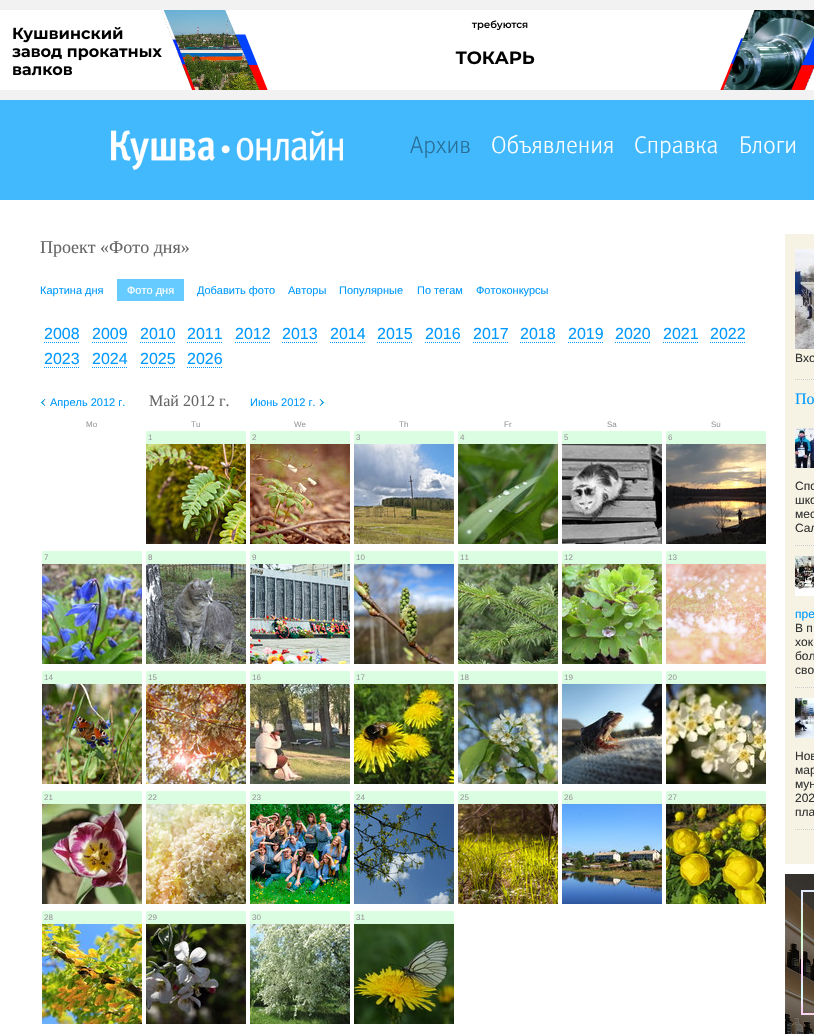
void draw(SkCanvas* canvas) {
	SkPaint fill;
	fill.setAntiAlias(true);
	auto makeFont = [&](const char* family, int weight, float size, bool italic = false) {
		SkFontStyle style(weight, SkFontStyle::kNormal_Width,
			italic ? SkFontStyle::kItalic_Slant : SkFontStyle::kUpright_Slant);
		SkFont result(fontMgr->matchFamilyStyle(family, style), size);
		result.setSubpixel(true);
		return result;
	};
	auto text = [&](const char* s, float x, float y, const SkFont& font) {
		canvas->drawString(s, x, y, font, fill);
	};
	auto box = [&](float l, float t, float r, float b) {
		canvas->drawRect(SkRect::MakeLTRB(l, t, r, b), fill);
	};
	auto picture = [&](const char* path, float l, float t, float r, float b) {
		auto image = SkImages::DeferredFromEncodedData(SkData::MakeFromFileName(path));
		canvas->drawImageRect(image, SkRect::MakeLTRB(l, t, r, b), SkSamplingOptions());
	};
	canvas->clear(0xFFFFFFFF);
	fill.setColor(0xFFF2F2F2);
	box(0, 0, 814, 100);
	picture("image0.png", 0, 10, 814, 90);
	fill.setColor(0xFF42B9FD);
	box(0, 100, 814, 200);
	picture("image1.png", 111, 130, 343, 170);
	fill.setColor(0xFF66CCFF);
	box(117, 279, 184, 301);
	fill.setStyle(SkPaint::kStroke_Style);
	fill.setStrokeWidth(1);
	fill.setColor(0xFF0099FF);
	fill.setPathEffect(SkDashPathEffect::Make({{1, 1}}, 0));
	canvas->drawPath(SkPathBuilder().moveTo(44, 342.5f).lineTo(80, 342.5f).detach(), fill);
	fill.setPathEffect(nullptr);
	fill.setPathEffect(SkDashPathEffect::Make({{1, 1}}, 0));
	canvas->drawPath(SkPathBuilder().moveTo(92, 342.5f).lineTo(128, 342.5f).detach(), fill);
	fill.setPathEffect(nullptr);
	fill.setPathEffect(SkDashPathEffect::Make({{1, 1}}, 0));
	canvas->drawPath(SkPathBuilder().moveTo(140, 342.5f).lineTo(175, 342.5f).detach(), fill);
	fill.setPathEffect(nullptr);
	fill.setPathEffect(SkDashPathEffect::Make({{1, 1}}, 0));
	canvas->drawPath(SkPathBuilder().moveTo(187, 342.5f).lineTo(223, 342.5f).detach(), fill);
	fill.setPathEffect(nullptr);
	fill.setPathEffect(SkDashPathEffect::Make({{1, 1}}, 0));
	canvas->drawPath(SkPathBuilder().moveTo(235, 342.5f).lineTo(270, 342.5f).detach(), fill);
	fill.setPathEffect(nullptr);
	fill.setPathEffect(SkDashPathEffect::Make({{1, 1}}, 0));
	canvas->drawPath(SkPathBuilder().moveTo(282, 342.5f).lineTo(318, 342.5f).detach(), fill);
	fill.setPathEffect(nullptr);
	fill.setPathEffect(SkDashPathEffect::Make({{1, 1}}, 0));
	canvas->drawPath(SkPathBuilder().moveTo(330, 342.5f).lineTo(365, 342.5f).detach(), fill);
	fill.setPathEffect(nullptr);
	fill.setPathEffect(SkDashPathEffect::Make({{1, 1}}, 0));
	canvas->drawPath(SkPathBuilder().moveTo(377, 342.5f).lineTo(413, 342.5f).detach(), fill);
	fill.setPathEffect(nullptr);
	fill.setPathEffect(SkDashPathEffect::Make({{1, 1}}, 0));
	canvas->drawPath(SkPathBuilder().moveTo(425, 342.5f).lineTo(461, 342.5f).detach(), fill);
	fill.setPathEffect(nullptr);
	fill.setPathEffect(SkDashPathEffect::Make({{1, 1}}, 0));
	canvas->drawPath(SkPathBuilder().moveTo(473, 342.5f).lineTo(508, 342.5f).detach(), fill);
	fill.setPathEffect(nullptr);
	fill.setPathEffect(SkDashPathEffect::Make({{1, 1}}, 0));
	canvas->drawPath(SkPathBuilder().moveTo(520, 342.5f).lineTo(556, 342.5f).detach(), fill);
	fill.setPathEffect(nullptr);
	fill.setPathEffect(SkDashPathEffect::Make({{1, 1}}, 0));
	canvas->drawPath(SkPathBuilder().moveTo(568, 342.5f).lineTo(603, 342.5f).detach(), fill);
	fill.setPathEffect(nullptr);
	fill.setPathEffect(SkDashPathEffect::Make({{1, 1}}, 0));
	canvas->drawPath(SkPathBuilder().moveTo(615, 342.5f).lineTo(651, 342.5f).detach(), fill);
	fill.setPathEffect(nullptr);
	fill.setPathEffect(SkDashPathEffect::Make({{1, 1}}, 0));
	canvas->drawPath(SkPathBuilder().moveTo(663, 342.5f).lineTo(698, 342.5f).detach(), fill);
	fill.setPathEffect(nullptr);
	fill.setPathEffect(SkDashPathEffect::Make({{1, 1}}, 0));
	canvas->drawPath(SkPathBuilder().moveTo(710, 342.5f).lineTo(746, 342.5f).detach(), fill);
	fill.setPathEffect(nullptr);
	fill.setPathEffect(SkDashPathEffect::Make({{1, 1}}, 0));
	canvas->drawPath(SkPathBuilder().moveTo(44, 367.5f).lineTo(80, 367.5f).detach(), fill);
	fill.setPathEffect(nullptr);
	fill.setPathEffect(SkDashPathEffect::Make({{1, 1}}, 0));
	canvas->drawPath(SkPathBuilder().moveTo(92, 367.5f).lineTo(128, 367.5f).detach(), fill);
	fill.setPathEffect(nullptr);
	fill.setPathEffect(SkDashPathEffect::Make({{1, 1}}, 0));
	canvas->drawPath(SkPathBuilder().moveTo(140, 367.5f).lineTo(175, 367.5f).detach(), fill);
	fill.setPathEffect(nullptr);
	fill.setPathEffect(SkDashPathEffect::Make({{1, 1}}, 0));
	canvas->drawPath(SkPathBuilder().moveTo(187, 367.5f).lineTo(223, 367.5f).detach(), fill);
	fill.setPathEffect(nullptr);
	picture("image2.png", 40, 399, 46, 406);
	picture("image3.png", 319, 399, 325, 406);
	fill.setStyle(SkPaint::kFill_Style);
	fill.setColor(0xFFDBFDE2);
	box(146, 431, 246, 444);
	picture("image4.png", 146, 444, 246, 544);
	box(250, 431, 350, 444);
	picture("image5.png", 250, 444, 350, 544);
	box(354, 431, 454, 444);
	picture("image6.png", 354, 444, 454, 544);
	box(458, 431, 558, 444);
	picture("image7.png", 458, 444, 558, 544);
	box(562, 431, 662, 444);
	picture("image8.png", 562, 444, 662, 544);
	box(666, 431, 766, 444);
	picture("image9.png", 666, 444, 766, 544);
	box(42, 551, 142, 564);
	picture("image10.png", 42, 564, 142, 664);
	box(146, 551, 246, 564);
	picture("image11.png", 146, 564, 246, 664);
	box(250, 551, 350, 564);
	picture("image12.png", 250, 564, 350, 664);
	box(354, 551, 454, 564);
	picture("image13.png", 354, 564, 454, 664);
	box(458, 551, 558, 564);
	picture("image14.png", 458, 564, 558, 664);
	box(562, 551, 662, 564);
	picture("image15.png", 562, 564, 662, 664);
	box(666, 551, 766, 564);
	picture("image16.png", 666, 564, 766, 664);
	box(42, 671, 142, 684);
	picture("image17.png", 42, 684, 142, 784);
	box(146, 671, 246, 684);
	picture("image18.png", 146, 684, 246, 784);
	box(250, 671, 350, 684);
	picture("image19.png", 250, 684, 350, 784);
	box(354, 671, 454, 684);
	picture("image20.png", 354, 684, 454, 784);
	box(458, 671, 558, 684);
	picture("image21.png", 458, 684, 558, 784);
	box(562, 671, 662, 684);
	picture("image22.png", 562, 684, 662, 784);
	box(666, 671, 766, 684);
	picture("image23.png", 666, 684, 766, 784);
	box(42, 791, 142, 804);
	picture("image24.png", 42, 804, 142, 904);
	box(146, 791, 246, 804);
	picture("image25.png", 146, 804, 246, 904);
	box(250, 791, 350, 804);
	picture("image26.png", 250, 804, 350, 904);
	box(354, 791, 454, 804);
	picture("image27.png", 354, 804, 454, 904);
	box(458, 791, 558, 804);
	picture("image28.png", 458, 804, 558, 904);
	box(562, 791, 662, 804);
	picture("image29.png", 562, 804, 662, 904);
	box(666, 791, 766, 804);
	picture("image30.png", 666, 804, 766, 904);
	box(42, 911, 142, 924);
	picture("image31.png", 42, 924, 142, 1024);
	box(146, 911, 246, 924);
	picture("image32.png", 146, 924, 246, 1024);
	box(250, 911, 350, 924);
	picture("image33.png", 250, 924, 350, 1024);
	box(354, 911, 454, 924);
	picture("image34.png", 354, 924, 454, 1024);
	fill.setColor(0xFFF6F3E4);
	box(785, 234, 814, 864);
	fill.setStyle(SkPaint::kStroke_Style);
	fill.setColor(0xFFCCCCCC);
	fill.setPathEffect(SkDashPathEffect::Make({{1, 1}}, 0));
	canvas->drawPath(SkPathBuilder().moveTo(795, 379.5f).lineTo(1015, 379.5f).detach(), fill);
	fill.setPathEffect(nullptr);
	picture("image35.png", 795, 249, 814, 349);
	fill.setPathEffect(SkDashPathEffect::Make({{1, 1}}, 0));
	canvas->drawPath(SkPathBuilder().moveTo(795, 545.5f).lineTo(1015, 545.5f).detach(), fill);
	fill.setPathEffect(nullptr);
	picture("image36.png", 795, 428, 814, 468);
	fill.setPathEffect(SkDashPathEffect::Make({{1, 1}}, 0));
	canvas->drawPath(SkPathBuilder().moveTo(795, 687.5f).lineTo(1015, 687.5f).detach(), fill);
	fill.setPathEffect(nullptr);
	picture("image37.png", 795, 556, 814, 596);
	fill.setPathEffect(SkDashPathEffect::Make({{1, 1}}, 0));
	canvas->drawPath(SkPathBuilder().moveTo(795, 829.5f).lineTo(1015, 829.5f).detach(), fill);
	fill.setPathEffect(nullptr);
	picture("image38.png", 795, 698, 814, 738);
	picture("image39.png", 785, 874, 814, 1034);
	auto font1 = makeFont("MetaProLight", 400, 24);
	fill.setStyle(SkPaint::kFill_Style);
	fill.setColor(0xFF286F98);
	text("Архив", 410, 153, font1);
	fill.setColor(0xFFFFFFFF);
	text("Объявления", 491, 153, font1);
	text("Справка", 634, 153, font1);
	text("Блоги", 739, 153, font1);
	auto font2 = makeFont("Liberation Serif", 400, 18);
	fill.setColor(0xFF666666);
	text("Проект «Фото дня»", 40, 253, font2);
	auto font3 = makeFont("Liberation Sans", 400, 11);
	fill.setColor(0xFF0099FF);
	text("Картина дня", 40, 294, font3);
	fill.setColor(0xFFFFFFFF);
	text("Фото дня", 127, 294, font3);
	fill.setColor(0xFF0099FF);
	text("Добавить фото", 197, 294, font3);
	text("Авторы", 288, 294, font3);
	text("Популярные", 339, 294, font3);
	text("По тегам", 417, 294, font3);
	text("Фотоконкурсы", 476, 294, font3);
	auto font4 = makeFont("Liberation Sans", 400, 16);
	text("2008", 44, 339, font4);
	text("2009", 92, 339, font4);
	text("2010", 140, 339, font4);
	text("2011", 187, 339, font4);
	text("2012", 235, 339, font4);
	text("2013", 282, 339, font4);
	text("2014", 330, 339, font4);
	text("2015", 377, 339, font4);
	text("2016", 425, 339, font4);
	text("2017", 473, 339, font4);
	text("2018", 520, 339, font4);
	text("2019", 568, 339, font4);
	text("2020", 615, 339, font4);
	text("2021", 663, 339, font4);
	text("2022", 710, 339, font4);
	text("2023", 44, 364, font4);
	text("2024", 92, 364, font4);
	text("2025", 140, 364, font4);
	text("2026", 187, 364, font4);
	text("Апрель 2012 г.", 50, 406, font3);
	auto font5 = makeFont("Liberation Serif", 400, 16);
	fill.setColor(0xFF666666);
	text("Май 2012 г.", 149, 406, font5);
	fill.setColor(0xFF0099FF);
	text("Июнь 2012 г.", 250, 406, font3);
	auto font6 = makeFont("Liberation Sans", 400, 8);
	fill.setColor(0xFF999999);
	text("Mo", 86, 427, font6);
	text("Tu", 191, 427, font6);
	text("We", 294, 427, font6);
	text("Th", 399, 427, font6);
	text("Fr", 504, 427, font6);
	text("Sa", 607, 427, font6);
	text("Su", 711, 427, font6);
	text("1", 148, 440, font6);
	text("2", 252, 440, font6);
	text("3", 356, 440, font6);
	text("4", 460, 440, font6);
	text("5", 564, 440, font6);
	text("6", 668, 440, font6);
	text("7", 44, 560, font6);
	text("8", 148, 560, font6);
	text("9", 252, 560, font6);
	text("10", 356, 560, font6);
	text("11", 460, 560, font6);
	text("12", 564, 560, font6);
	text("13", 668, 560, font6);
	text("14", 44, 680, font6);
	text("15", 148, 680, font6);
	text("16", 252, 680, font6);
	text("17", 356, 680, font6);
	text("18", 460, 680, font6);
	text("19", 564, 680, font6);
	text("20", 668, 680, font6);
	text("21", 44, 800, font6);
	text("22", 148, 800, font6);
	text("23", 252, 800, font6);
	text("24", 356, 800, font6);
	text("25", 460, 800, font6);
	text("26", 564, 800, font6);
	text("27", 668, 800, font6);
	text("28", 44, 920, font6);
	text("29", 148, 920, font6);
	text("30", 252, 920, font6);
	text("31", 356, 920, font6);
	auto font7 = makeFont("Liberation Sans", 400, 12);
	fill.setColor(0xFF333333);
	text("Вхо", 795, 362, font7);
	fill.setColor(0xFF0099FF);
	text("По", 795, 404, font5);
	fill.setColor(0xFF333333);
	text("Спо", 795, 490, font7);
	text("шко", 795, 504, font7);
	text("мес", 795, 518, font7);
	text("Сал", 795, 532, font7);
	fill.setColor(0xFF0099FF);
	text("пре", 795, 618, font7);
	fill.setColor(0xFF333333);
	text("В п", 795, 632, font7);
	text("хок", 795, 646, font7);
	text("бол", 795, 660, font7);
	text("сво", 795, 674, font7);
	text("Нов", 795, 760, font7);
	text("мар", 795, 774, font7);
	text("мун", 795, 788, font7);
	text("202", 795, 802, font7);
	text("пла", 795, 816, font7);
}
